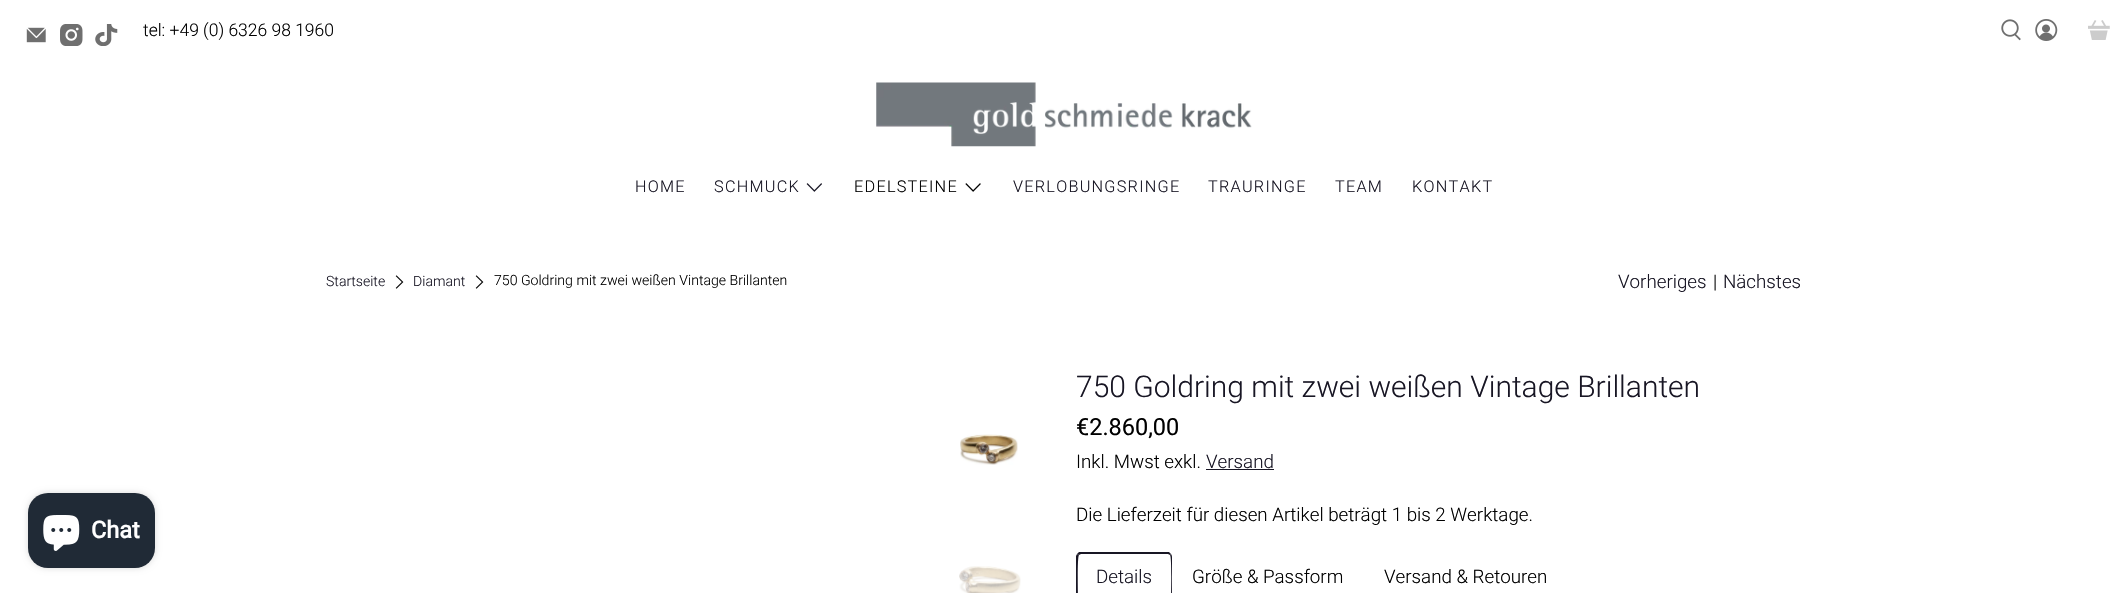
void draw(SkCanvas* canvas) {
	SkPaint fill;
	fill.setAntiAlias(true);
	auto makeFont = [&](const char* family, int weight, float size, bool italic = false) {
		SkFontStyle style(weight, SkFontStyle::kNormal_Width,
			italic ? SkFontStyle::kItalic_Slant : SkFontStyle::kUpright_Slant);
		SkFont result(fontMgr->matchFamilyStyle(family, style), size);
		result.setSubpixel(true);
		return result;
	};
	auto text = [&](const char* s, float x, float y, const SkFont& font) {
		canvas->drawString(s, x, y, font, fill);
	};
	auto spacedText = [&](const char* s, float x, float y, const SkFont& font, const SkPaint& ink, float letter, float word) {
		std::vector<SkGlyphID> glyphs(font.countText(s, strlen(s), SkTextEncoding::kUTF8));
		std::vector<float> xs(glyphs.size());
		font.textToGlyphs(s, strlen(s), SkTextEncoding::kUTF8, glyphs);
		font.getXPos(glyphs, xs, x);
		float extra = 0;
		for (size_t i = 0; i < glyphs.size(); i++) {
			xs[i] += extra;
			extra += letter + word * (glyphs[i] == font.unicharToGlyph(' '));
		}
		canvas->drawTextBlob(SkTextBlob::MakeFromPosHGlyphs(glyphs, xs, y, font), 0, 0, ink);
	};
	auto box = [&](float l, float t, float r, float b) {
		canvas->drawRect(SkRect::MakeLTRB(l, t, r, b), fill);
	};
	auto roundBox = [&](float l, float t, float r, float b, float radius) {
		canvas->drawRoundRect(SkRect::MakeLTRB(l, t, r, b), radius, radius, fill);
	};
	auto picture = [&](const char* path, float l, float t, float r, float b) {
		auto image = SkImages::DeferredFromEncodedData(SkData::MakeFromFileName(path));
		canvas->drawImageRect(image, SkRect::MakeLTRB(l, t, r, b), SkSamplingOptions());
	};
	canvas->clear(0xFFFFFFFF);
	picture("image0.png", 26, 27, 46, 43);
	picture("image1.png", 60, 24, 83, 46);
	picture("image2.png", 95, 24, 118, 46);
	picture("image3.png", 2001, 19, 2021, 41);
	picture("image4.png", 2035, 19, 2058, 41);
	picture("image5.png", 2088, 20, 2110, 40);
	picture("image6.png", 876, 82, 1252, 147);
	picture("image7.png", 806, 183, 822, 192);
	picture("image8.png", 965, 183, 981, 192);
	fill.setColor(0x26000000);
	fill.setMaskFilter(SkMaskFilter::MakeBlur(kNormal_SkBlurStyle, 3));
	canvas->drawRoundRect(SkRect::MakeLTRB(28, 493, 155, 568), 20, 20, fill);
	fill.setMaskFilter(nullptr);
	fill.setColor(0xFF202A36);
	roundBox(28, 493, 155, 568, 20);
	picture("image9.png", 43, 515, 80, 551);
	picture("image10.png", 395, 275, 404, 289);
	picture("image10.png", 475, 275, 484, 289);
	picture("image11.png", 960, 434, 1018, 465);
	picture("image12.png", 959, 566, 1021, 593);
	fill.setColor(0xFF181624);
	box(1206, 469, 1274, 470);
	canvas->drawPath(SkPathBuilder().moveTo(1081, 554).lineTo(1079, 555).lineTo(1077, 554).lineTo(1079, 552).lineTo(1169, 552).lineTo(1171, 554).lineTo(1170, 555).lineTo(1168, 554).close().detach(), fill);
	canvas->drawPath(SkPathBuilder().moveTo(1171, 554).cubicTo(1172, 555, 1172, 557, 1172, 558).lineTo(1172, 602).lineTo(1171, 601).cubicTo(1171, 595, 1172, 557, 1170, 555).close().detach(), fill);
	canvas->drawPath(SkPathBuilder().moveTo(1076, 556).lineTo(1077, 554).lineTo(1079, 555).cubicTo(1077, 557, 1078, 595, 1078, 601).lineTo(1076, 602).close().detach(), fill);
	auto font1 = makeFont("Roboto", 300, 17.5f);
	fill.setColor(0xFF000000);
	text("tel: +49 (0) 6326 98 1960", 143, 36, font1);
	auto font2 = makeFont("Roboto", 300, 16.25f);
	fill.setColor(0xFF181624);
	spacedText("HOME", 635, 192, font2, fill, 1.25f, 0);
	spacedText("SCHMUCK", 714, 192, font2, fill, 1.25f, 0);
	fill.setColor(0xFF000000);
	spacedText("EDELSTEINE", 854, 192, font2, fill, 1.25f, 0);
	fill.setColor(0xFF181624);
	spacedText("VERLOBUNGSRINGE", 1013, 192, font2, fill, 1.25f, 0);
	spacedText("TRAURINGE", 1208, 192, font2, fill, 1.25f, 0);
	spacedText("TEAM", 1335, 192, font2, fill, 1.25f, 0);
	spacedText("KONTAKT", 1412, 192, font2, fill, 1.25f, 0);
	auto font3 = makeFont("Roboto", 700, 23.5f);
	fill.setColor(0xFFFFFFFF);
	text("Chat", 91, 538, font3);
	auto font4 = makeFont("Roboto", 300, 14.1f);
	fill.setColor(0xFF181624);
	text("Startseite", 326, 286, font4);
	text("Diamant", 413, 286, font4);
	fill.setColor(0xFF000000);
	text("750 Goldring mit zwei weißen Vintage Brillanten", 494, 285, font4);
	auto font5 = makeFont("Roboto", 300, 18.75f);
	fill.setColor(0xFF181624);
	text("Vorheriges", 1618, 288, font5);
	fill.setColor(0xFF000000);
	text("|", 1713, 288, font5);
	fill.setColor(0xFF181624);
	text("Nächstes", 1723, 288, font5);
	auto font6 = makeFont("Roboto", 300, 30);
	text("750 Goldring mit zwei weißen Vintage Brillanten", 1076, 397, font6);
	auto font7 = makeFont("Roboto", 400, 23.5f);
	fill.setColor(0xFF000000);
	text("€2.860,00", 1076, 435, font7);
	text("Inkl. Mwst exkl.", 1076, 468, font5);
	fill.setColor(0xFF181624);
	text("Versand", 1206, 468, font5);
	fill.setColor(0xFF000000);
	text("Die Lieferzeit für diesen Artikel beträgt 1 bis 2 Werktage.", 1076, 521, font5);
	fill.setColor(0xFF181624);
	text("Details", 1096, 583, font5);
	fill.setColor(0xFF000000);
	text("Größe & Passform", 1192, 583, font5);
	text("Versand & Retouren", 1384, 583, font5);
}
